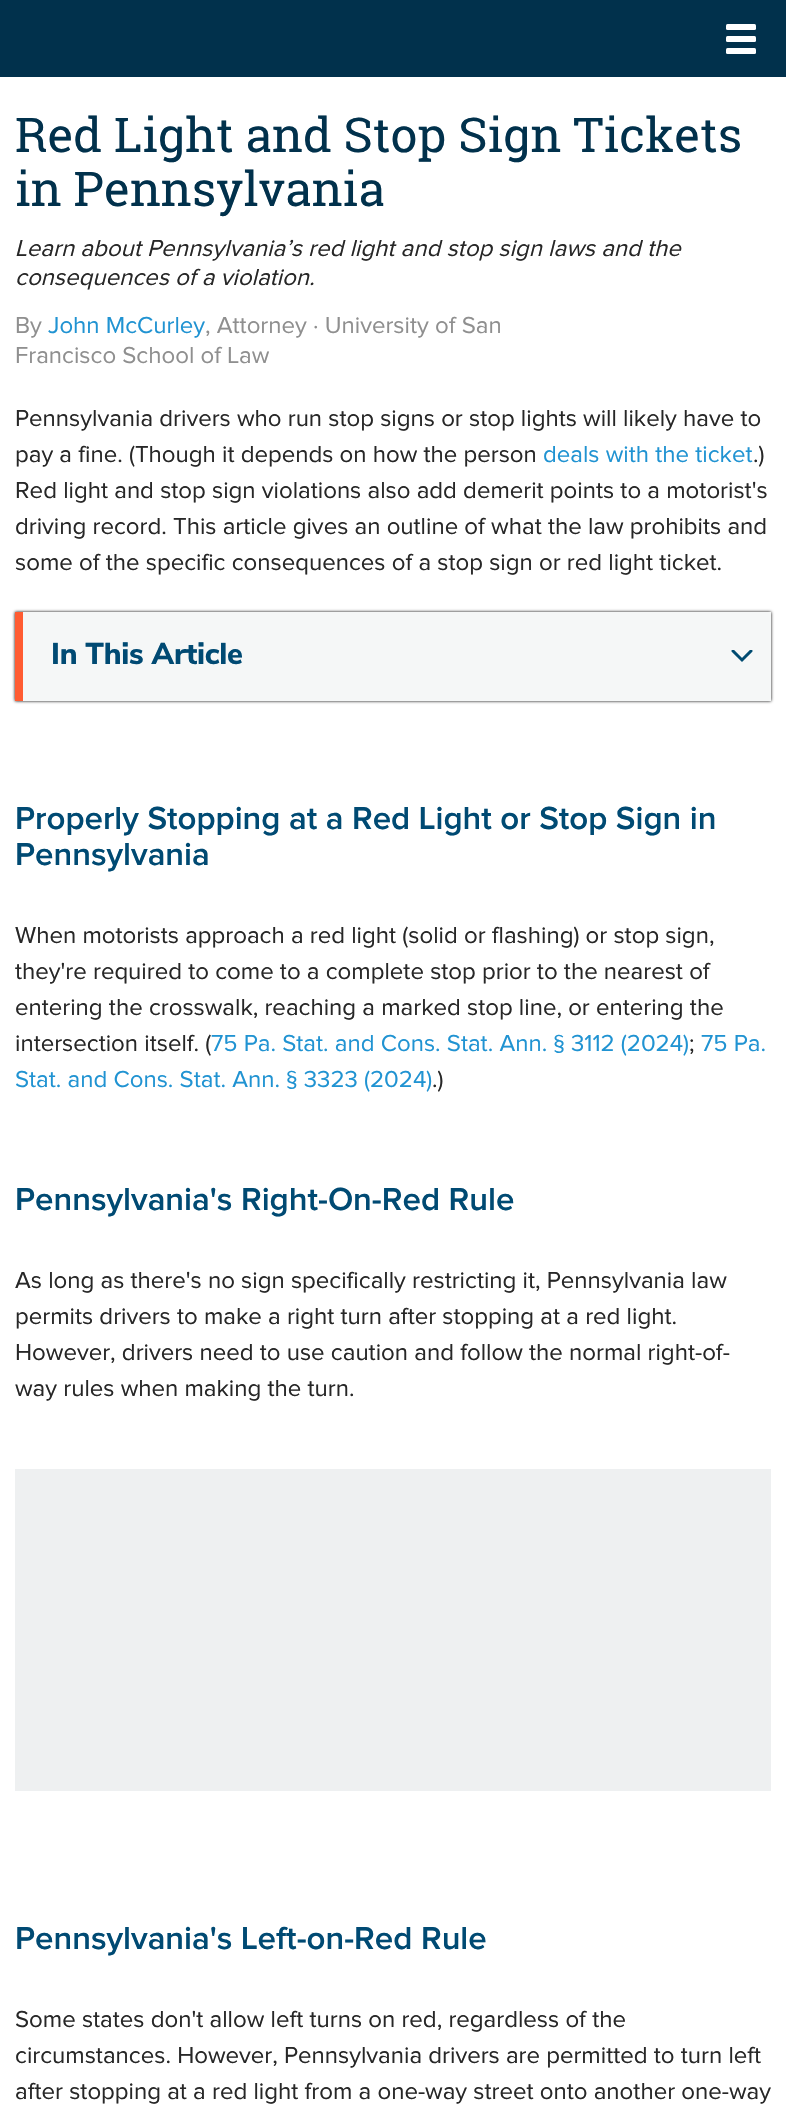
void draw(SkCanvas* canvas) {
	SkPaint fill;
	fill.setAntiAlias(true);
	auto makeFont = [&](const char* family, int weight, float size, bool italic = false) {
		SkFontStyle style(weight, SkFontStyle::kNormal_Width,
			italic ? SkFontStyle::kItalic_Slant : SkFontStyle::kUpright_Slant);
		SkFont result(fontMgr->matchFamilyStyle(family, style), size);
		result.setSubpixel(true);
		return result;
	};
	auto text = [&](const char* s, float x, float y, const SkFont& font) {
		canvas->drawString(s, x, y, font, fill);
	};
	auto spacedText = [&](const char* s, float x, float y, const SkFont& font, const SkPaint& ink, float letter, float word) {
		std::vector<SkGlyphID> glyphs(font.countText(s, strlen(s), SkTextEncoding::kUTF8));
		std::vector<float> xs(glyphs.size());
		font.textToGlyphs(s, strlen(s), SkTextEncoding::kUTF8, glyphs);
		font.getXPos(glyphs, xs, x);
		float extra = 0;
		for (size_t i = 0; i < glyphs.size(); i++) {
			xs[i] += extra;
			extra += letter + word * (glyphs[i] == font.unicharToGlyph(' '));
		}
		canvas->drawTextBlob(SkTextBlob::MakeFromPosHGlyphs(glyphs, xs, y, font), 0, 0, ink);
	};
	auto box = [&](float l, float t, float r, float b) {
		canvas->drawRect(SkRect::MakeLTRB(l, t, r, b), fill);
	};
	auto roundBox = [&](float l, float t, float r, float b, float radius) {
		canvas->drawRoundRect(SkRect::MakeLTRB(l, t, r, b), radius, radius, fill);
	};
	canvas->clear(0xFFFFFFFF);
	fill.setColor(0xFF01314C);
	box(0, 0, 786, 77);
	fill.setColor(0xFFFFFFFF);
	roundBox(726, 24, 756, 30, 1.5f);
	roundBox(726, 36, 756, 42, 1.5f);
	roundBox(726, 48, 756, 54, 1.5f);
	fill.setColor(0xFF000000);
	fill.setMaskFilter(SkMaskFilter::MakeBlur(kNormal_SkBlurStyle, 1.5f));
	canvas->drawRect(SkRect::MakeLTRB(15, 612, 771, 701), fill);
	fill.setMaskFilter(nullptr);
	fill.setColor(0xFFF5F7F7);
	box(23, 612, 771, 701);
	fill.setColor(0xFFFF5C32);
	box(15, 612, 23, 701);
	canvas->save();
	canvas->clipRect(SkRect::MakeLTRB(731, 650, 753, 663));
	fill.setStyle(SkPaint::kStroke_Style);
	fill.setStrokeWidth(3);
	fill.setStrokeCap(SkPaint::kRound_Cap);
	fill.setColor(0xFF004B71);
	canvas->drawPath(SkPathBuilder().moveTo(751, 651).lineTo(742, 660).lineTo(733, 651).detach(), fill);
	canvas->restore();
	fill.setStyle(SkPaint::kFill_Style);
	fill.setColor(0xFFEEF0F1);
	box(15, 1469, 771, 1791);
	auto font1 = makeFont("Roboto Slab", 400, 48);
	fill.setColor(0xFF01314C);
	text("Red Light and Stop Sign Tickets", 15, 152, font1);
	text("in Pennsylvania", 15, 206, font1);
	auto font2 = makeFont("Proxima Nova", 400, 24, true);
	fill.setColor(0xFF272727);
	text("Learn about Pennsylvania’s red light and stop sign laws and the", 15, 256, font2);
	text("consequences of a violation.", 15, 285, font2);
	auto font3 = makeFont("Proxima Nova", 400, 24);
	fill.setColor(0xFF8F8F8F);
	text("By", 15, 333, font3);
	fill.setColor(0xFF2093D2);
	text("John McCurley", 48, 333, font3);
	fill.setColor(0xFF8F8F8F);
	text(", Attorney · University of San", 205, 333, font3);
	text("Francisco School of Law", 15, 363, font3);
	fill.setColor(0xFF272727);
	text("Pennsylvania drivers who run stop signs or stop lights will likely have to", 15, 426, font3);
	text("pay a fine. (Though it depends on how the person", 15, 462, font3);
	fill.setColor(0xFF2093D2);
	text("deals with the ticket", 543, 462, font3);
	fill.setColor(0xFF272727);
	text(".)", 753, 462, font3);
	text("Red light and stop sign violations also add demerit points to a motorist's", 15, 498, font3);
	text("driving record. This article gives an outline of what the law prohibits and", 15, 534, font3);
	text("some of the specific consequences of a stop sign or red light ticket.", 15, 570, font3);
	auto font4 = makeFont("Nunito Sans", 800, 30);
	fill.setColor(0xFF004A73);
	spacedText("In This Article", 51, 664, font4, fill, -0.25f, 0);
	auto font5 = makeFont("Proxima Nova", 600, 33);
	text("Properly Stopping at a Red Light or Stop Sign in", 15, 829, font5);
	text("Pennsylvania", 15, 865, font5);
	fill.setColor(0xFF272727);
	text("When motorists approach a red light (solid or flashing) or stop sign,", 15, 943, font3);
	text("they're required to come to a complete stop prior to the nearest of", 15, 979, font3);
	text("entering the crosswalk, reaching a marked stop line, or entering the", 15, 1015, font3);
	text("intersection itself. (", 15, 1051, font3);
	fill.setColor(0xFF2093D2);
	text("75 Pa. Stat. and Cons. Stat. Ann. § 3112 (2024)", 211, 1051, font3);
	fill.setColor(0xFF272727);
	text(";", 689, 1051, font3);
	fill.setColor(0xFF2093D2);
	text("75 Pa.", 701, 1051, font3);
	text("Stat. and Cons. Stat. Ann. § 3323 (2024)", 15, 1087, font3);
	fill.setColor(0xFF272727);
	text(".)", 432, 1087, font3);
	fill.setColor(0xFF004A73);
	text("Pennsylvania's Right-On-Red Rule", 15, 1210, font5);
	fill.setColor(0xFF272727);
	text("As long as there's no sign specifically restricting it, Pennsylvania law", 15, 1288, font3);
	text("permits drivers to make a right turn after stopping at a red light.", 15, 1324, font3);
	text("However, drivers need to use caution and follow the normal right-of-", 15, 1360, font3);
	text("way rules when making the turn.", 15, 1396, font3);
	fill.setColor(0xFF004A73);
	text("Pennsylvania's Left-on-Red Rule", 15, 1949, font5);
	fill.setColor(0xFF272727);
	text("Some states don't allow left turns on red, regardless of the", 15, 2027, font3);
	text("circumstances. However, Pennsylvania drivers are permitted to turn left", 15, 2063, font3);
	text("after stopping at a red light from a one-way street onto another one-way", 15, 2099, font3);
}
